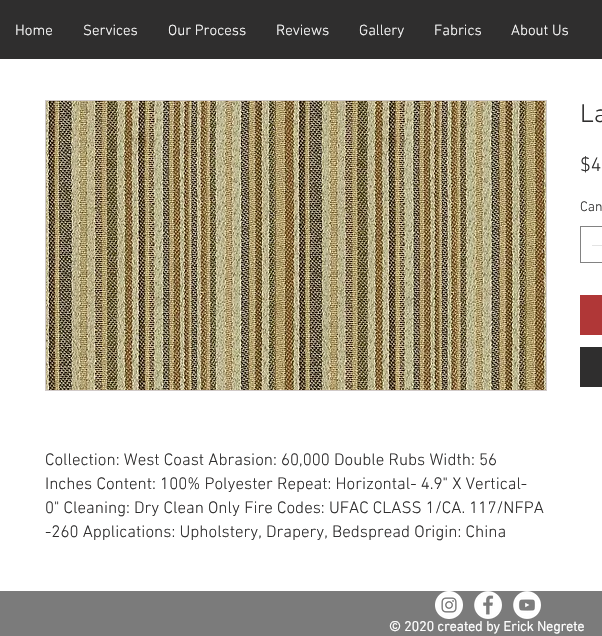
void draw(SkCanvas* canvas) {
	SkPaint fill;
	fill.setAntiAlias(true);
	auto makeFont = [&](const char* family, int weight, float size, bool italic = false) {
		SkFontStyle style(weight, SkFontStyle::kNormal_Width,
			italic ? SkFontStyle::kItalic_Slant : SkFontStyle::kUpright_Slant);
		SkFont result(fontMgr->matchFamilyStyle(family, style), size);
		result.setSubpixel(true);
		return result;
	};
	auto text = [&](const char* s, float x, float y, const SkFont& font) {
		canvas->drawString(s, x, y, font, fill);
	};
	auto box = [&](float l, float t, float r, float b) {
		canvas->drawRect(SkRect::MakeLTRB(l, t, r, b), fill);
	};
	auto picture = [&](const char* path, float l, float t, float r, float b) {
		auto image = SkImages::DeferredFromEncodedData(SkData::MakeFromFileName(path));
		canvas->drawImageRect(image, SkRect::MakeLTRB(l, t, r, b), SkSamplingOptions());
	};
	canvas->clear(0xFFFFFFFF);
	fill.setColor(0xFF2F2E2E);
	box(0, 0, 602, 59);
	fill.setStyle(SkPaint::kStroke_Style);
	fill.setStrokeWidth(1);
	fill.setColor(0xFF828282);
	canvas->drawRect(SkRect::MakeLTRB(580.5f, 226.5f, 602.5f, 262.5f), fill);
	fill.setStyle(SkPaint::kFill_Style);
	fill.setColor(0xFFE3E3E3);
	box(592, 245, 602, 246);
	fill.setColor(0xFFB03737);
	box(580, 295, 602, 335);
	fill.setColor(0xFF2F2E2E);
	box(580, 347, 602, 387);
	fill.setStyle(SkPaint::kStroke_Style);
	fill.setColor(0xFFD1CAC9);
	canvas->drawRect(SkRect::MakeLTRB(45.5f, 100.5f, 546.5f, 390.5f), fill);
	picture("image0.png", 46, 101, 546, 390);
	fill.setStyle(SkPaint::kFill_Style);
	fill.setColor(0xFF7B7B7B);
	box(0, 591, 602, 636);
	picture("image1.png", 435, 591, 463, 619);
	picture("image2.png", 474, 591, 502, 619);
	picture("image3.png", 513, 591, 541, 619);
	auto font1 = makeFont("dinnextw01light", 300, 15);
	fill.setColor(0xFFFFFFFF);
	text("Home", 15, 35, font1);
	text("Services", 83, 35, font1);
	text("Our Process", 168, 35, font1);
	text("Reviews", 276, 35, font1);
	text("Gallery", 359, 35, font1);
	text("Fabrics", 434, 35, font1);
	text("About Us", 511, 35, font1);
	auto font2 = makeFont("dinnextw01light", 300, 26);
	fill.setColor(0xFF2F2E2E);
	text("La", 580, 122, font2);
	auto font3 = makeFont("dinnextw01light", 300, 20);
	text("$4", 580, 171, font3);
	auto font4 = makeFont("dinnextw01light", 300, 14);
	text("Can", 580, 211, font4);
	auto font5 = makeFont("dinnextw01light", 300, 17);
	text("Collection: West Coast Abrasion: 60,000 Double Rubs Width: 56", 45, 465, font5);
	text("Inches Content: 100% Polyester Repeat: Horizontal- 4.9\" X Vertical-", 45, 489, font5);
	text("0\" Cleaning: Dry Clean Only Fire Codes: UFAC CLASS 1/CA. 117/NFPA", 45, 513, font5);
	text("-260 Applications: Upholstery, Drapery, Bedspread Origin: China", 45, 537, font5);
	auto font6 = makeFont("dinnextw01light", 700, 14);
	fill.setColor(0xFFFFFFFF);
	text("© 2020 created by Erick Negrete", 389, 631, font6);
}
